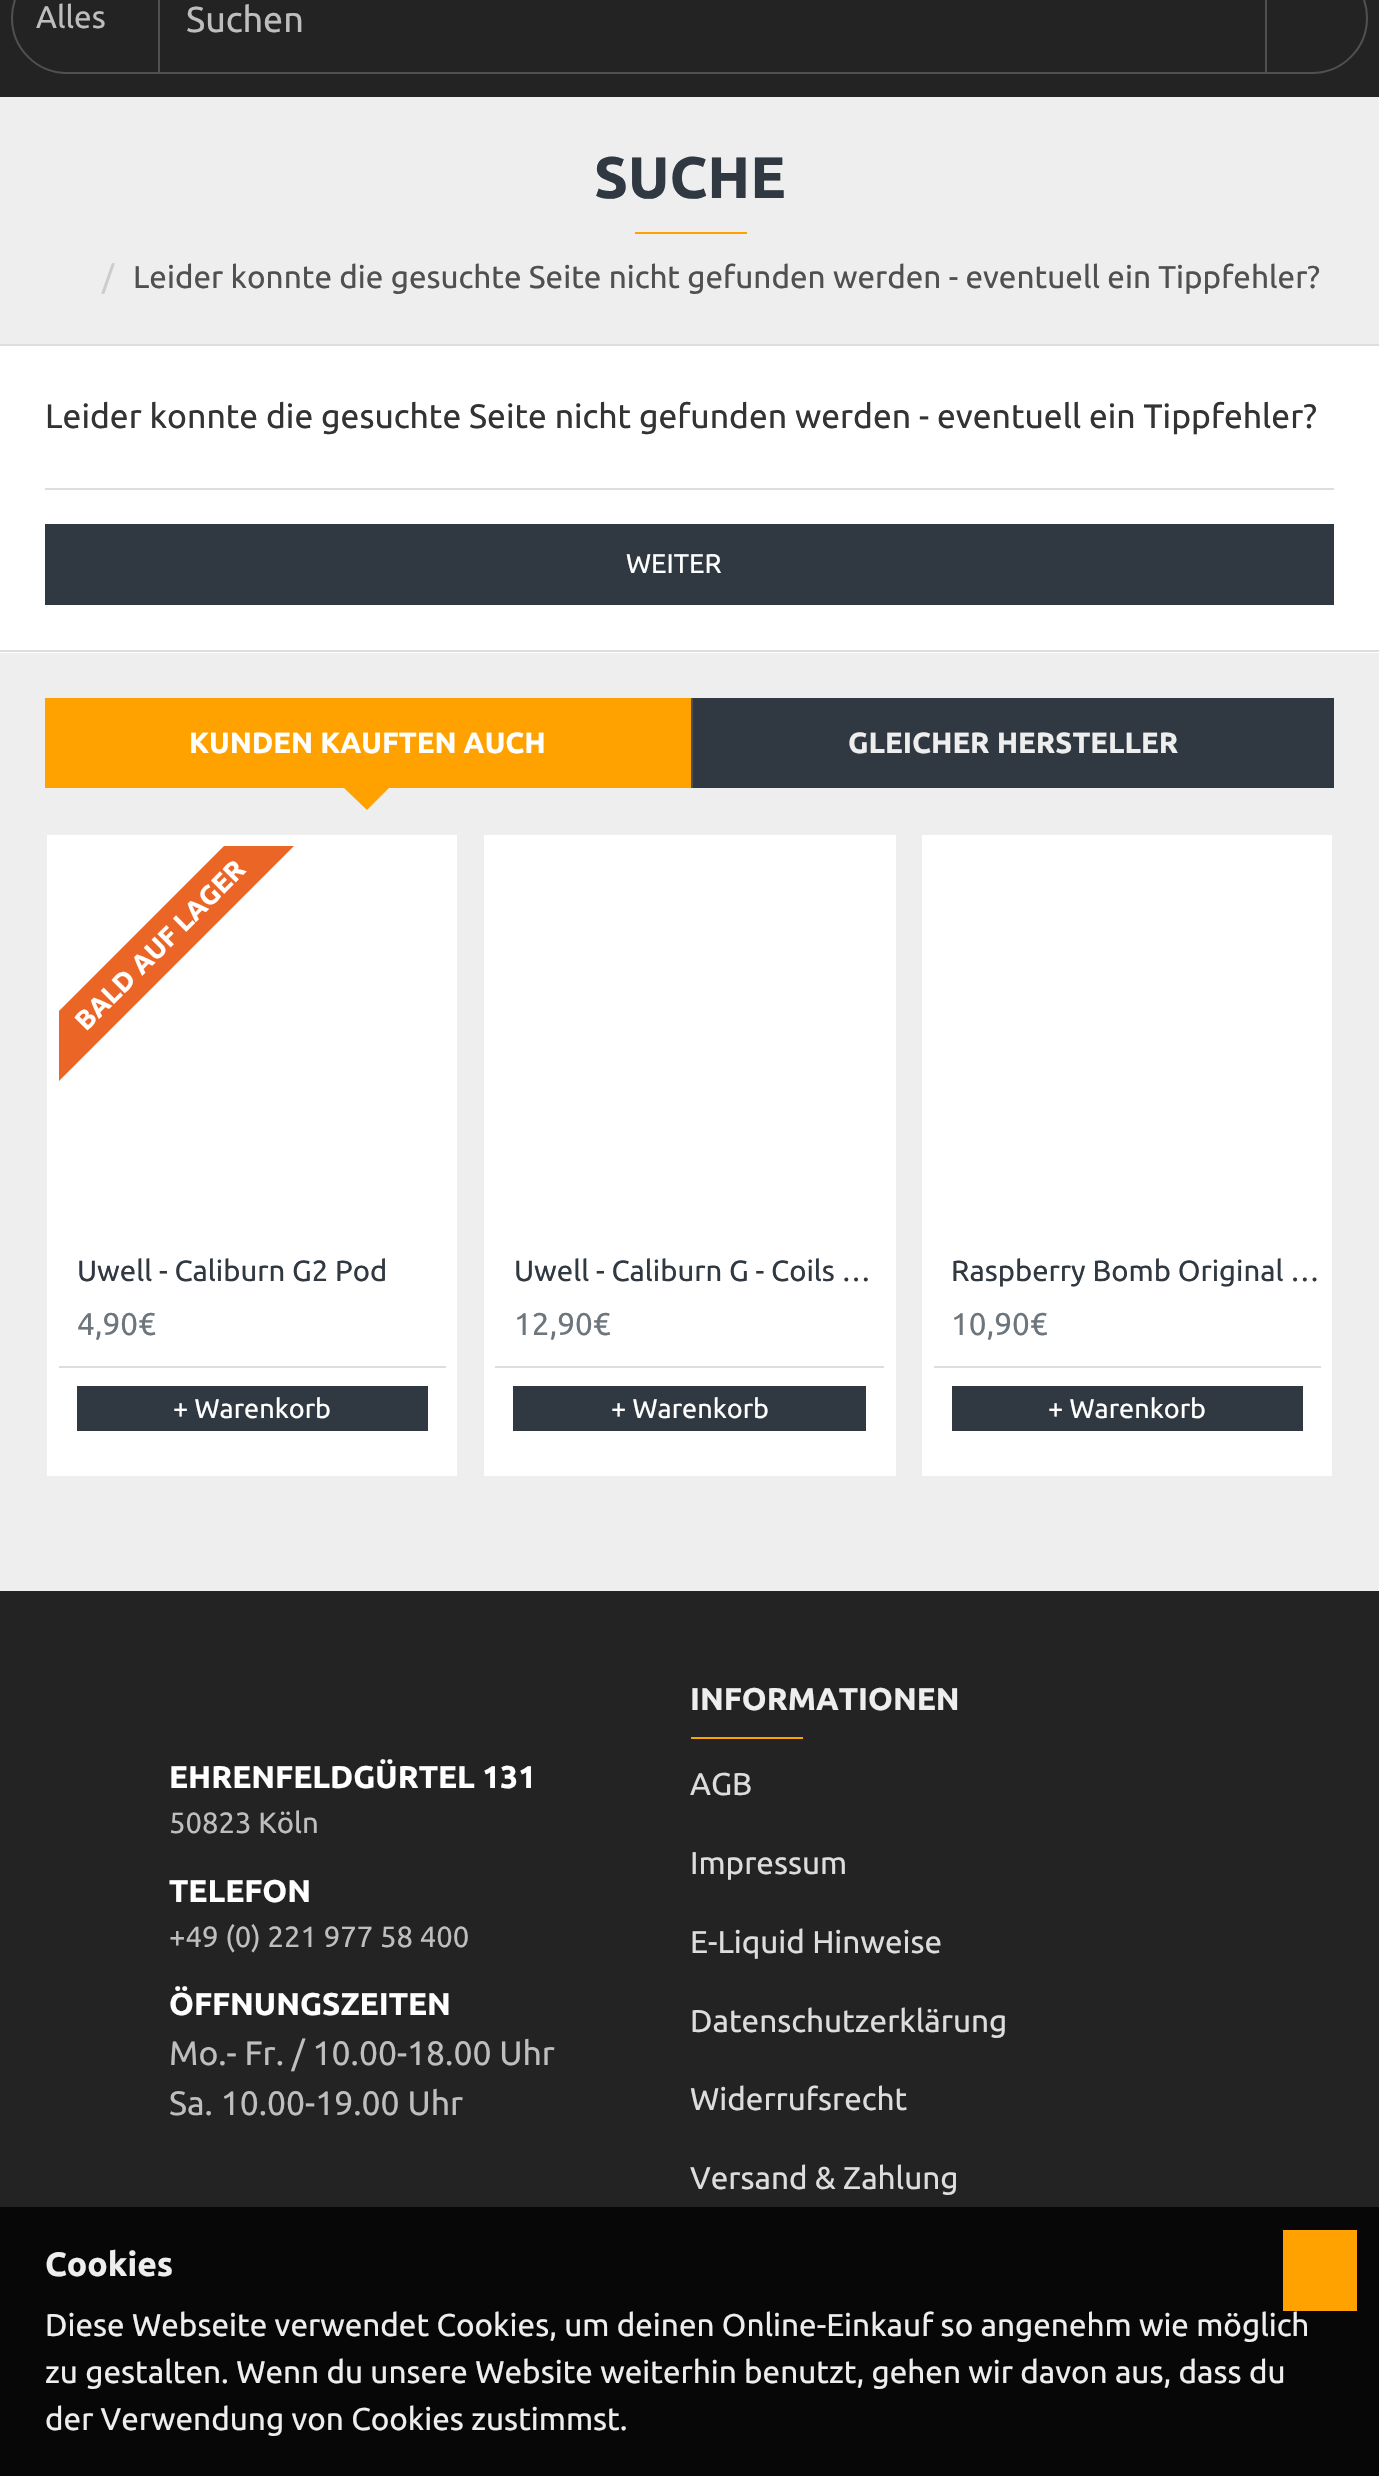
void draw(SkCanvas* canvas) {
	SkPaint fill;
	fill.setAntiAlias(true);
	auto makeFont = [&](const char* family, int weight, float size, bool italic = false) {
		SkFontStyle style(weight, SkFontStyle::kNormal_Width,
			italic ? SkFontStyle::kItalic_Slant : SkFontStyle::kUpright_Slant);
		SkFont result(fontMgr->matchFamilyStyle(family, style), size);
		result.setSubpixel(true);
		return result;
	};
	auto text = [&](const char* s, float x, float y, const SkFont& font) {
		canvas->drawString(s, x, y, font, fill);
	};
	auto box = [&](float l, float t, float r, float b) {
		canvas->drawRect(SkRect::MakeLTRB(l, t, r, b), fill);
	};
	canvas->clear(0xFFFFFFFF);
	fill.setColor(0xFF232323);
	box(0, 0, 1379, 97);
	fill.setStyle(SkPaint::kStroke_Style);
	fill.setStrokeWidth(2);
	fill.setColor(0xFF505050);
	canvas->drawRoundRect(SkRect::MakeLTRB(12, -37, 1367, 73), 55, 55, fill);
	fill.setStyle(SkPaint::kFill_Style);
	box(158, 0, 160, 72);
	box(1265, 0, 1267, 72);
	fill.setColor(0xFFEEEEEE);
	box(0, 97, 1379, 344);
	fill.setColor(0xFFFFA200);
	box(635, 232, 747, 234);
	fill.setColor(0xFFDDDDDD);
	box(0, 344, 1379, 346);
	box(45, 488, 1334, 490);
	fill.setColor(0xFF303841);
	box(45, 524, 1334, 605);
	fill.setColor(0xFFEEEEEE);
	box(0, 653, 1379, 1591);
	fill.setColor(0xFFDDDDDD);
	box(0, 650, 1379, 652);
	fill.setColor(0xFFFFA200);
	box(45, 698, 691, 788);
	canvas->drawPath(SkPathBuilder().moveTo(344, 788).lineTo(389, 788).lineTo(367, 810).close().detach(), fill);
	fill.setColor(0xFF505050);
	box(691, 698, 693, 788);
	fill.setColor(0xFF303841);
	box(693, 698, 1334, 788);
	fill.setColor(0xFFFFFFFF);
	box(47, 835, 457, 1476);
	canvas->save();
	canvas->clipRect(SkRect::MakeLTRB(59, 846, 446, 1233));
	fill.setColor(0xFFEB6626);
	canvas->drawPath(SkPathBuilder().moveTo(-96, 1166).lineTo(381, 689).lineTo(416, 724).lineTo(-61, 1201).close().detach(), fill);
	canvas->restore();
	fill.setColor(0xFFDDDDDD);
	box(59, 1366, 446, 1368);
	fill.setColor(0xFF303841);
	box(77, 1386, 428, 1431);
	fill.setColor(0xFFFFFFFF);
	box(484, 835, 896, 1476);
	fill.setColor(0xFFDDDDDD);
	box(495, 1366, 884, 1368);
	fill.setColor(0xFF303841);
	box(513, 1386, 866, 1431);
	fill.setColor(0xFFFFFFFF);
	box(922, 835, 1332, 1476);
	fill.setColor(0xFFDDDDDD);
	box(934, 1366, 1321, 1368);
	fill.setColor(0xFF303841);
	box(952, 1386, 1303, 1431);
	fill.setColor(0xFF232323);
	box(0, 1591, 1379, 2476);
	fill.setColor(0xFFFFA200);
	box(691, 1737, 803, 1739);
	fill.setColor(0xCC000000);
	box(0, 2207, 1379, 2476);
	fill.setColor(0xFFFFA200);
	box(1283, 2230, 1357, 2311);
	auto font1 = makeFont("Ubuntu", 400, 31.5f);
	fill.setColor(0xFFBEBEBE);
	text("Alles", 36, 28, font1);
	auto font2 = makeFont("Ubuntu", 400, 36);
	text("Suchen", 186, 32, font2);
	auto font3 = makeFont("Ubuntu", 700, 58.5f);
	fill.setColor(0xFF303841);
	text("SUCHE", 594, 198, font3);
	fill.setColor(0xFFCCCCCC);
	text("/", 102, 288, font1);
	fill.setColor(0xFF505050);
	text("Leider konnte die gesuchte Seite nicht gefunden werden - eventuell ein Tippfehler?", 133, 288, font1);
	auto font4 = makeFont("Ubuntu", 400, 33.75f);
	fill.setColor(0xFF333333);
	text("Leider konnte die gesuchte Seite nicht gefunden werden - eventuell ein Tippfehler?", 45, 428, font4);
	auto font5 = makeFont("Ubuntu", 400, 27);
	fill.setColor(0xFFFFFFFF);
	text("WEITER", 626, 573, font5);
	auto font6 = makeFont("Ubuntu", 700, 29.25f);
	text("KUNDEN KAUFTEN AUCH", 189, 753, font6);
	fill.setColor(0xFFEEEEEE);
	text("GLEICHER HERSTELLER", 848, 753, font6);
	auto font7 = makeFont("Ubuntu", 700, 27);
	fill.setColor(0xFFFFFFFF);
	canvas->save();
	canvas->rotate(-45, 86, 1032);
	text("BALD AUF LAGER", 86, 1032, font7);
	canvas->restore();
	auto font8 = makeFont("Ubuntu", 400, 29.25f);
	fill.setColor(0xFF303841);
	text("Uwell - Caliburn G2 Pod", 77, 1281, font8);
	fill.setColor(0xFF6D767D);
	text("4,90€", 77, 1335, font1);
	fill.setColor(0xFFFFFFFF);
	text("+ Warenkorb", 173, 1418, font5);
	fill.setColor(0xFF303841);
	text("Uwell - Caliburn G - Coils …", 514, 1281, font8);
	fill.setColor(0xFF6D767D);
	text("12,90€", 514, 1335, font1);
	fill.setColor(0xFFFFFFFF);
	text("+ Warenkorb", 611, 1418, font5);
	fill.setColor(0xFF303841);
	text("Raspberry Bomb Original …", 951, 1281, font8);
	fill.setColor(0xFF6D767D);
	text("10,90€", 951, 1335, font1);
	fill.setColor(0xFFFFFFFF);
	text("+ Warenkorb", 1048, 1418, font5);
	auto font9 = makeFont("Ubuntu", 700, 31.5f);
	text("EHRENFELDGÜRTEL 131", 169, 1788, font9);
	fill.setColor(0xFFBEBEBE);
	text("50823 Köln", 169, 1833, font8);
	fill.setColor(0xFFFFFFFF);
	text("TELEFON", 169, 1902, font9);
	fill.setColor(0xFFBEBEBE);
	text("+49 (0) 221 977 58 400", 169, 1947, font8);
	fill.setColor(0xFFFFFFFF);
	text("ÖFFNUNGSZEITEN", 169, 2015, font9);
	fill.setColor(0xFFBEBEBE);
	text("Mo.- Fr. / 10.00-18.00 Uhr", 169, 2065, font4);
	text("Sa. 10.00-19.00 Uhr", 169, 2115, font4);
	fill.setColor(0xFFEEEEEE);
	text("INFORMATIONEN", 690, 1710, font9);
	fill.setColor(0xFFDDDDDD);
	text("AGB", 690, 1795, font1);
	text("Impressum", 690, 1874, font1);
	text("E-Liquid Hinweise", 690, 1953, font1);
	text("Datenschutzerklärung", 690, 2032, font1);
	text("Widerrufsrecht", 690, 2110, font1);
	text("Versand & Zahlung", 690, 2189, font1);
	auto font10 = makeFont("Ubuntu", 700, 33.75f);
	fill.setColor(0xFFEEEEEE);
	text("Cookies", 45, 2276, font10);
	text("Diese Webseite verwendet Cookies, um deinen Online-Einkauf so angenehm wie möglich", 45, 2336, font1);
	text("zu gestalten. Wenn du unsere Website weiterhin benutzt, gehen wir davon aus, dass du", 45, 2383, font1);
	text("der Verwendung von Cookies zustimmst.", 45, 2430, font1);
}
